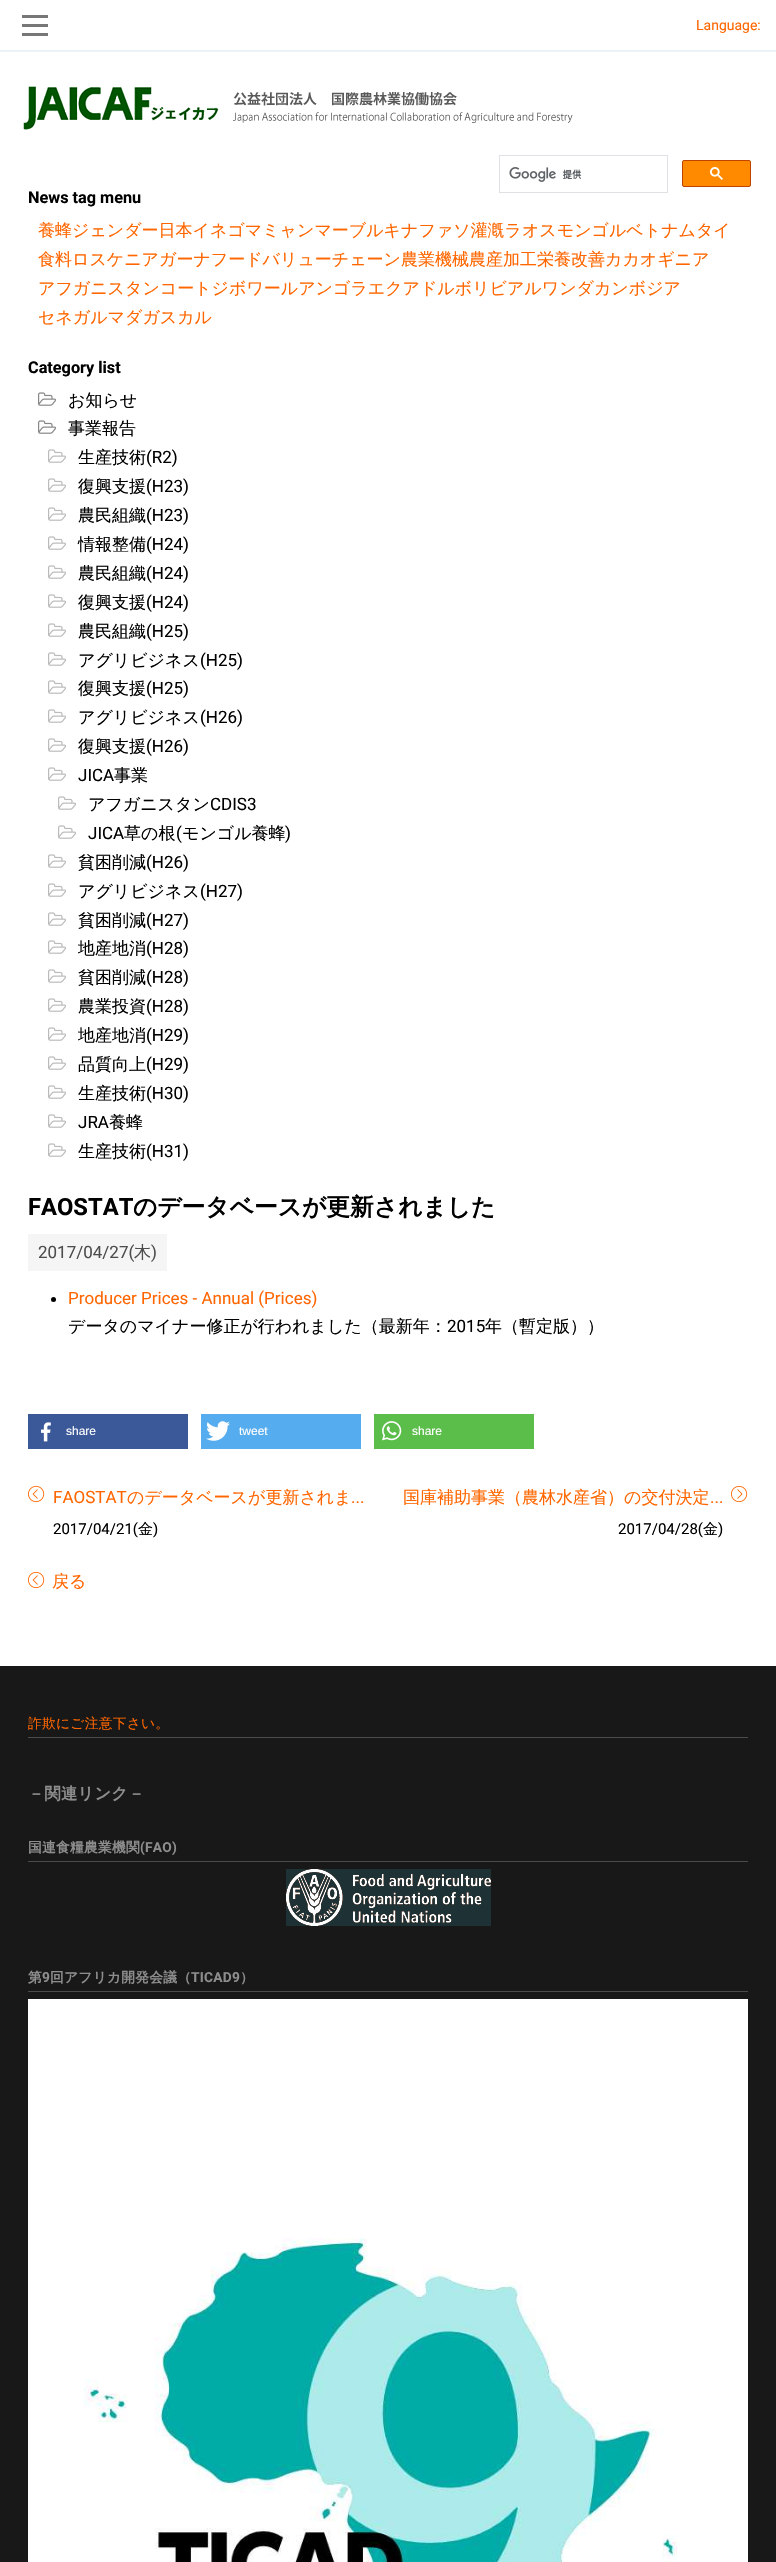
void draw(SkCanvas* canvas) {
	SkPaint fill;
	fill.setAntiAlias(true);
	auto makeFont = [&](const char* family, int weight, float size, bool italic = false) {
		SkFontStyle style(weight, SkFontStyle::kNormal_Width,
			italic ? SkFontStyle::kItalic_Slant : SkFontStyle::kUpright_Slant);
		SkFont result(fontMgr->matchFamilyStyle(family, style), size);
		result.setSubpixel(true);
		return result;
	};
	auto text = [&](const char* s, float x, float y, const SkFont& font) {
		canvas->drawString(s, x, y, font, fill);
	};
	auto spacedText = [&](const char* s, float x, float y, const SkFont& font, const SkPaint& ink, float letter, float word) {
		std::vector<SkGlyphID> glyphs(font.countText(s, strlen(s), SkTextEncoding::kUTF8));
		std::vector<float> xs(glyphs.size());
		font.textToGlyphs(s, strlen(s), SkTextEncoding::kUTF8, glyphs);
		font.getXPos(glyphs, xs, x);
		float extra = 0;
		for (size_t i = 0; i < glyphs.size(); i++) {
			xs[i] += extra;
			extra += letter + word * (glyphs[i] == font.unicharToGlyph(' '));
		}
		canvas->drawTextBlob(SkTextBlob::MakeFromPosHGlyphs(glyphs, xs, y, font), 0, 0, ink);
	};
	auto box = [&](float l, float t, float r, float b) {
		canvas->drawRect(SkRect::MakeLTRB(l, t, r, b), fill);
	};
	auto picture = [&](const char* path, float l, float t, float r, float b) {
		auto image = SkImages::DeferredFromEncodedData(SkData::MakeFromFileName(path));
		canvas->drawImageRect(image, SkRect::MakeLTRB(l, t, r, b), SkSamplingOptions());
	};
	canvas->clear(0xFFFFFFFF);
	fill.setColor(0xFF777777);
	box(22, 24, 48, 27);
	box(22, 15, 48, 18);
	box(22, 33, 48, 36);
	fill.setColor(0xFFEBF3F6);
	box(0, 50, 776, 52);
	picture("image0.png", 23, 86, 573, 130);
	fill.setStyle(SkPaint::kStroke_Style);
	fill.setStrokeWidth(1);
	fill.setColor(0xFFDFE1E5);
	canvas->drawRect(SkRect::MakeLTRB(499.5f, 155.5f, 667.5f, 192.5f), fill);
	picture("image1.png", 509, 167, 582, 182);
	fill.setStyle(SkPaint::kFill_Style);
	fill.setColor(0xFFFF8A00);
	canvas->drawRoundRect(SkRect::MakeLTRB(682.5f, 160.5f, 750.5f, 186.5f), 1.5f, 1.5f, fill);
	fill.setStyle(SkPaint::kStroke_Style);
	fill.setColor(0xFFBF4400);
	canvas->drawRoundRect(SkRect::MakeLTRB(682.5f, 160.5f, 750.5f, 186.5f), 1.5f, 1.5f, fill);
	picture("image2.png", 710, 167, 723, 180);
	picture("image3.png", 38, 392, 57, 406);
	picture("image3.png", 38, 420, 57, 434);
	picture("image4.png", 48, 449, 66, 463);
	picture("image4.png", 48, 478, 66, 492);
	picture("image4.png", 48, 507, 66, 521);
	picture("image4.png", 48, 536, 66, 550);
	picture("image4.png", 48, 565, 66, 579);
	picture("image4.png", 48, 594, 66, 608);
	picture("image4.png", 48, 623, 66, 637);
	picture("image4.png", 48, 652, 66, 666);
	picture("image4.png", 48, 680, 66, 694);
	picture("image4.png", 48, 709, 66, 723);
	picture("image4.png", 48, 738, 66, 752);
	picture("image4.png", 48, 767, 66, 781);
	picture("image4.png", 58, 796, 76, 810);
	picture("image4.png", 58, 825, 76, 839);
	picture("image4.png", 48, 854, 66, 868);
	picture("image4.png", 48, 883, 66, 897);
	picture("image4.png", 48, 912, 66, 926);
	picture("image4.png", 48, 940, 66, 954);
	picture("image4.png", 48, 969, 66, 983);
	picture("image4.png", 48, 998, 66, 1012);
	picture("image4.png", 48, 1027, 66, 1041);
	picture("image4.png", 48, 1056, 66, 1070);
	picture("image4.png", 48, 1085, 66, 1099);
	picture("image4.png", 48, 1114, 66, 1128);
	picture("image4.png", 48, 1143, 66, 1157);
	fill.setStyle(SkPaint::kFill_Style);
	fill.setColor(0xFFF5F5F5);
	box(28, 1234, 167, 1271);
	fill.setColor(0xFF000000);
	canvas->drawCircle(53.5f, 1299.5f, 2.5f, fill);
	fill.setColor(0xFF3B5998);
	box(28, 1414, 188, 1449);
	picture("image5.png", 41, 1422, 51, 1442);
	fill.setColor(0xFF55ACEE);
	box(201, 1414, 361, 1449);
	picture("image6.png", 206, 1421, 230, 1441);
	fill.setColor(0xFF5CBE4A);
	box(374, 1414, 534, 1449);
	picture("image7.png", 382, 1421, 402, 1441);
	picture("image8.png", 28, 1485, 45, 1503);
	picture("image9.png", 731, 1485, 748, 1503);
	picture("image8.png", 28, 1571, 45, 1589);
	fill.setColor(0xFF181818);
	box(0, 1666, 776, 2562);
	fill.setColor(0xFF4B4B4B);
	box(28, 1737, 748, 1738);
	box(28, 1861, 748, 1862);
	picture("image10.png", 286, 1869, 491, 1926);
	box(28, 1991, 748, 1992);
	picture("image11.png", 28, 1999, 748, 2562);
	auto font1 = makeFont("Roboto", 400, 14);
	fill.setColor(0xFFFF6600);
	text("Language:", 696, 30, font1);
	auto font2 = makeFont("Roboto", 700, 16.25f);
	fill.setColor(0xFF000000);
	text("News tag menu", 28, 203, font2);
	auto font3 = makeFont("WenQuanYi Zen Hei", 500, 17);
	fill.setColor(0xFFFF6600);
	text("養蜂ジェンダー日本イネゴマミャンマーブルキナファソ灌漑ラオスモンゴルベトナムタイ", 38, 236, font3);
	text("食料ロスケニアガーナフードバリューチェーン農業機械農産加工栄養改善カカオギニア", 38, 265, font3);
	text("アフガニスタンコートジボワールアンゴラエクアドルボリビアルワンダカンボジア", 38, 294, font3);
	text("セネガルマダガスカル", 38, 323, font3);
	fill.setColor(0xFF000000);
	text("Category list", 28, 373, font2);
	text("お知らせ", 68, 406, font3);
	text("事業報告", 68, 434, font3);
	text("生産技術", 78, 463, font3);
	auto font4 = makeFont("Roboto", 400, 17);
	text("(R2)", 146, 463, font4);
	text("復興支援", 78, 492, font3);
	text("(H23)", 146, 492, font4);
	text("農民組織", 78, 521, font3);
	text("(H23)", 146, 521, font4);
	text("情報整備", 78, 550, font3);
	text("(H24)", 146, 550, font4);
	text("農民組織", 78, 579, font3);
	text("(H24)", 146, 579, font4);
	text("復興支援", 78, 608, font3);
	text("(H24)", 146, 608, font4);
	text("農民組織", 78, 637, font3);
	text("(H25)", 146, 637, font4);
	text("アグリビジネス", 78, 666, font3);
	text("(H25)", 200, 666, font4);
	text("復興支援", 78, 694, font3);
	text("(H25)", 146, 694, font4);
	text("アグリビジネス", 78, 723, font3);
	text("(H26)", 200, 723, font4);
	text("復興支援", 78, 752, font3);
	text("(H26)", 146, 752, font4);
	text("JICA", 78, 781, font4);
	text("事業", 114, 781, font3);
	text("アフガニスタン", 88, 810, font3);
	text("CDIS3", 210, 810, font4);
	text("JICA", 88, 839, font4);
	text("草の根", 124, 839, font3);
	text("(", 176, 839, font4);
	text("モンゴル養蜂", 182, 839, font3);
	text(")", 285, 839, font4);
	text("貧困削減", 78, 868, font3);
	text("(H26)", 146, 868, font4);
	text("アグリビジネス", 78, 897, font3);
	text("(H27)", 200, 897, font4);
	text("貧困削減", 78, 926, font3);
	text("(H27)", 146, 926, font4);
	text("地産地消", 78, 954, font3);
	text("(H28)", 146, 954, font4);
	text("貧困削減", 78, 983, font3);
	text("(H28)", 146, 983, font4);
	text("農業投資", 78, 1012, font3);
	text("(H28)", 146, 1012, font4);
	text("地産地消", 78, 1041, font3);
	text("(H29)", 146, 1041, font4);
	text("品質向上", 78, 1070, font3);
	text("(H29)", 146, 1070, font4);
	text("生産技術", 78, 1099, font3);
	text("(H30)", 146, 1099, font4);
	text("JRA", 78, 1128, font4);
	text("養蜂", 109, 1128, font3);
	text("生産技術", 78, 1157, font3);
	text("(H31)", 146, 1157, font4);
	auto font5 = makeFont("Roboto", 700, 23.75f);
	text("FAOSTAT", 28, 1215, font5);
	auto font6 = makeFont("WenQuanYi Zen Hei", 700, 23.75f);
	text("のデータベースが更新されました", 133, 1215, font6);
	fill.setColor(0xFF4E4E4E);
	text("2017/04/27(", 38, 1258, font4);
	text("木", 134, 1258, font3);
	text(")", 151, 1258, font4);
	fill.setColor(0xFFFF6600);
	text("Producer Prices - Annual (Prices)", 68, 1304, font4);
	fill.setColor(0xFF000000);
	text("データのマイナー修正が行われました（最新年：", 68, 1332, font3);
	text("2015", 447, 1332, font4);
	text("年（暫定版））", 485, 1332, font3);
	auto font7 = makeFont("Liberation Sans", 400, 12);
	fill.setColor(0xFFFFFFFF);
	text("share", 66, 1435, font7);
	text("tweet", 239, 1435, font7);
	text("share", 412, 1435, font7);
	fill.setColor(0xFFFF6600);
	text("FAOSTAT", 53, 1503, font4);
	text("のデータベースが更新されま", 127, 1503, font3);
	text("...", 351, 1503, font4);
	auto font8 = makeFont("Roboto", 400, 15);
	fill.setColor(0xFF000000);
	text("2017/04/21(", 53, 1534, font8);
	auto font9 = makeFont("WenQuanYi Zen Hei", 500, 15);
	text("金", 138, 1534, font9);
	text(")", 153, 1534, font8);
	fill.setColor(0xFFFF6600);
	text("国庫補助事業（農林水産省）の交付決定", 403, 1503, font3);
	text("...", 710, 1503, font4);
	fill.setColor(0xFF000000);
	text("2017/04/28(", 618, 1534, font8);
	text("金", 703, 1534, font9);
	text(")", 718, 1534, font8);
	fill.setColor(0xFFFF6600);
	text("戻る", 52, 1587, font3);
	auto font10 = makeFont("WenQuanYi Zen Hei", 500, 13.75f);
	spacedText("詐欺にご注意下さい。", 28, 1728, font10, fill, 0.25f, 0);
	auto font11 = makeFont("WenQuanYi Zen Hei", 700, 16.25f);
	fill.setColor(0xFF8D8D8D);
	spacedText("－関連リンク－", 28, 1799, font11, fill, 0.25f, 0);
	auto font12 = makeFont("WenQuanYi Zen Hei", 700, 13.75f);
	spacedText("国連食糧農業機関", 28, 1852, font12, fill, 0.25f, 0);
	auto font13 = makeFont("Roboto", 700, 13.75f);
	spacedText("(FAO)", 140, 1852, font13, fill, 0.25f, 0);
	spacedText("第", 28, 1982, font12, fill, 0.25f, 0);
	spacedText("9", 42, 1982, font13, fill, 0.25f, 0);
	spacedText("回アフリカ開発会議（", 50, 1982, font12, fill, 0.25f, 0);
	spacedText("TICAD9", 191, 1982, font13, fill, 0.25f, 0);
	spacedText("）", 240, 1982, font12, fill, 0.25f, 0);
}
